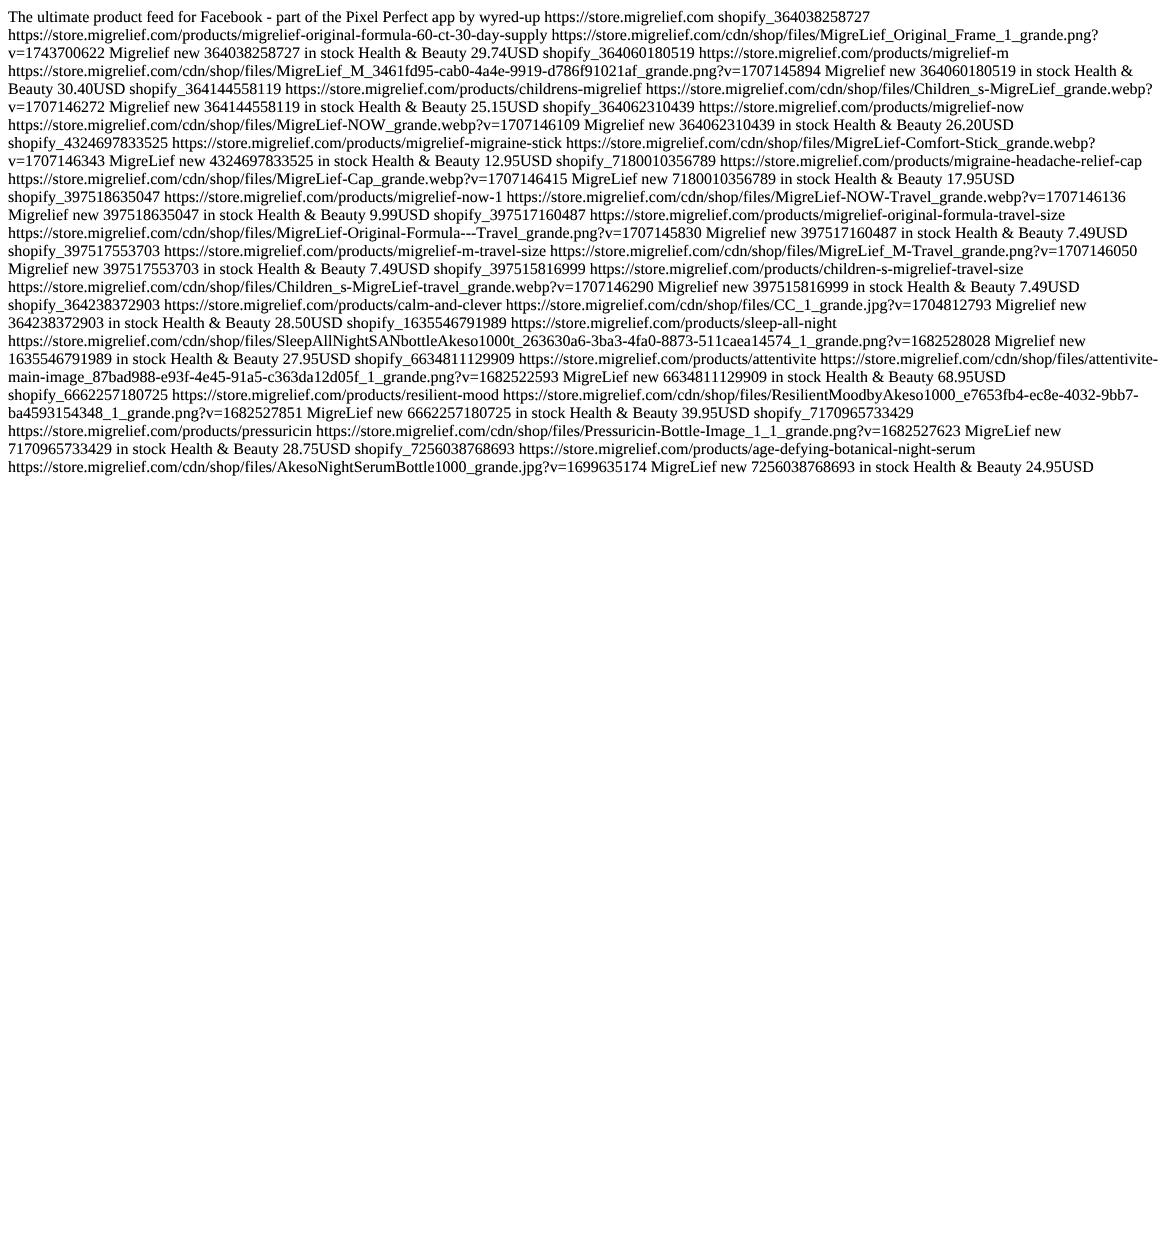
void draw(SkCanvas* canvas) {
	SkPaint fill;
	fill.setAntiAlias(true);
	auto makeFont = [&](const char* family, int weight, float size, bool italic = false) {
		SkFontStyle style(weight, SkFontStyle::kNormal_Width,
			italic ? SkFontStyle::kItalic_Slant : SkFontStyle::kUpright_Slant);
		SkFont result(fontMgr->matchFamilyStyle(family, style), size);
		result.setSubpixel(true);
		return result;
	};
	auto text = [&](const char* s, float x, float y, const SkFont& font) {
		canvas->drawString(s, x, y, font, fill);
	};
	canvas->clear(0xFFFFFFFF);
	auto font1 = makeFont("Liberation Serif", 400, 16);
	fill.setColor(0xFF000000);
	text("The ultimate product feed for Facebook - part of the Pixel Perfect app by wyred-up https://store.migrelief.com shopify_364038258727", 8, 22, font1);
	text("https://store.migrelief.com/products/migrelief-original-formula-60-ct-30-day-supply https://store.migrelief.com/cdn/shop/files/MigreLief_Original_Frame_1_grande.png?", 8, 40, font1);
	text("v=1743700622 Migrelief new 364038258727 in stock Health & Beauty 29.74USD shopify_364060180519 https://store.migrelief.com/products/migrelief-m", 8, 58, font1);
	text("https://store.migrelief.com/cdn/shop/files/MigreLief_M_3461fd95-cab0-4a4e-9919-d786f91021af_grande.png?v=1707145894 Migrelief new 364060180519 in stock Health &", 8, 76, font1);
	text("Beauty 30.40USD shopify_364144558119 https://store.migrelief.com/products/childrens-migrelief https://store.migrelief.com/cdn/shop/files/Children_s-MigreLief_grande.webp?", 8, 94, font1);
	text("v=1707146272 Migrelief new 364144558119 in stock Health & Beauty 25.15USD shopify_364062310439 https://store.migrelief.com/products/migrelief-now", 8, 112, font1);
	text("https://store.migrelief.com/cdn/shop/files/MigreLief-NOW_grande.webp?v=1707146109 Migrelief new 364062310439 in stock Health & Beauty 26.20USD", 8, 130, font1);
	text("shopify_4324697833525 https://store.migrelief.com/products/migrelief-migraine-stick https://store.migrelief.com/cdn/shop/files/MigreLief-Comfort-Stick_grande.webp?", 8, 148, font1);
	text("v=1707146343 MigreLief new 4324697833525 in stock Health & Beauty 12.95USD shopify_7180010356789 https://store.migrelief.com/products/migraine-headache-relief-cap", 8, 166, font1);
	text("https://store.migrelief.com/cdn/shop/files/MigreLief-Cap_grande.webp?v=1707146415 MigreLief new 7180010356789 in stock Health & Beauty 17.95USD", 8, 184, font1);
	text("shopify_397518635047 https://store.migrelief.com/products/migrelief-now-1 https://store.migrelief.com/cdn/shop/files/MigreLief-NOW-Travel_grande.webp?v=1707146136", 8, 202, font1);
	text("Migrelief new 397518635047 in stock Health & Beauty 9.99USD shopify_397517160487 https://store.migrelief.com/products/migrelief-original-formula-travel-size", 8, 220, font1);
	text("https://store.migrelief.com/cdn/shop/files/MigreLief-Original-Formula---Travel_grande.png?v=1707145830 Migrelief new 397517160487 in stock Health & Beauty 7.49USD", 8, 238, font1);
	text("shopify_397517553703 https://store.migrelief.com/products/migrelief-m-travel-size https://store.migrelief.com/cdn/shop/files/MigreLief_M-Travel_grande.png?v=1707146050", 8, 256, font1);
	text("Migrelief new 397517553703 in stock Health & Beauty 7.49USD shopify_397515816999 https://store.migrelief.com/products/children-s-migrelief-travel-size", 8, 274, font1);
	text("https://store.migrelief.com/cdn/shop/files/Children_s-MigreLief-travel_grande.webp?v=1707146290 Migrelief new 397515816999 in stock Health & Beauty 7.49USD", 8, 292, font1);
	text("shopify_364238372903 https://store.migrelief.com/products/calm-and-clever https://store.migrelief.com/cdn/shop/files/CC_1_grande.jpg?v=1704812793 Migrelief new", 8, 310, font1);
	text("364238372903 in stock Health & Beauty 28.50USD shopify_1635546791989 https://store.migrelief.com/products/sleep-all-night", 8, 328, font1);
	text("https://store.migrelief.com/cdn/shop/files/SleepAllNightSANbottleAkeso1000t_263630a6-3ba3-4fa0-8873-511caea14574_1_grande.png?v=1682528028 Migrelief new", 8, 346, font1);
	text("1635546791989 in stock Health & Beauty 27.95USD shopify_6634811129909 https://store.migrelief.com/products/attentivite https://store.migrelief.com/cdn/shop/files/attentivite-", 8, 364, font1);
	text("main-image_87bad988-e93f-4e45-91a5-c363da12d05f_1_grande.png?v=1682522593 MigreLief new 6634811129909 in stock Health & Beauty 68.95USD", 8, 382, font1);
	text("shopify_6662257180725 https://store.migrelief.com/products/resilient-mood https://store.migrelief.com/cdn/shop/files/ResilientMoodbyAkeso1000_e7653fb4-ec8e-4032-9bb7-", 8, 400, font1);
	text("ba4593154348_1_grande.png?v=1682527851 MigreLief new 6662257180725 in stock Health & Beauty 39.95USD shopify_7170965733429", 8, 418, font1);
	text("https://store.migrelief.com/products/pressuricin https://store.migrelief.com/cdn/shop/files/Pressuricin-Bottle-Image_1_1_grande.png?v=1682527623 MigreLief new", 8, 436, font1);
	text("7170965733429 in stock Health & Beauty 28.75USD shopify_7256038768693 https://store.migrelief.com/products/age-defying-botanical-night-serum", 8, 454, font1);
	text("https://store.migrelief.com/cdn/shop/files/AkesoNightSerumBottle1000_grande.jpg?v=1699635174 MigreLief new 7256038768693 in stock Health & Beauty 24.95USD", 8, 472, font1);
}
